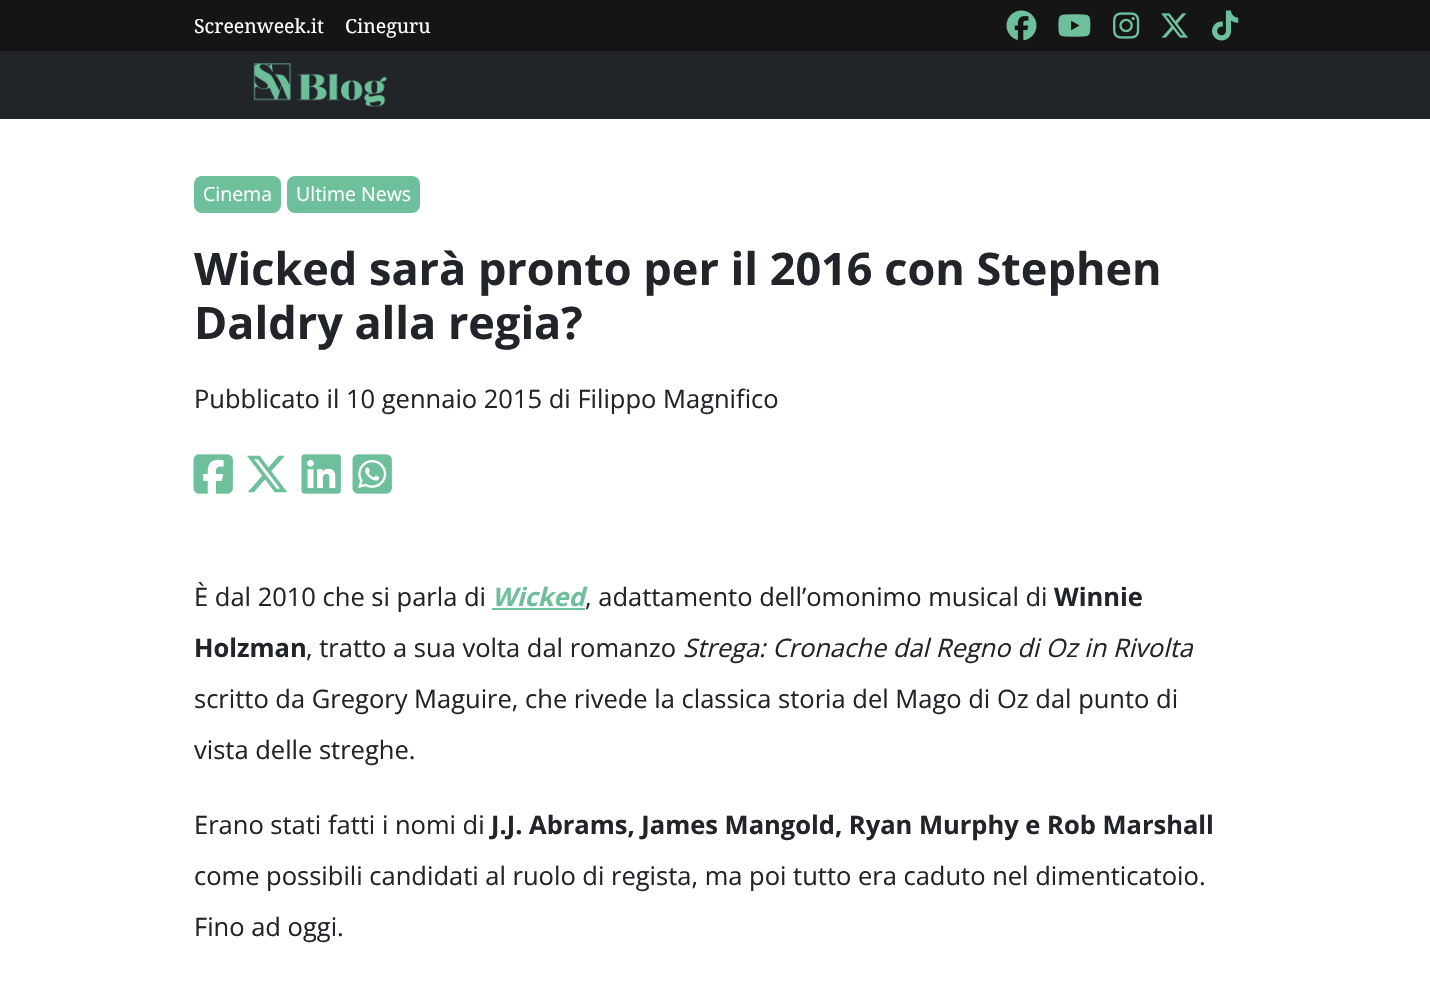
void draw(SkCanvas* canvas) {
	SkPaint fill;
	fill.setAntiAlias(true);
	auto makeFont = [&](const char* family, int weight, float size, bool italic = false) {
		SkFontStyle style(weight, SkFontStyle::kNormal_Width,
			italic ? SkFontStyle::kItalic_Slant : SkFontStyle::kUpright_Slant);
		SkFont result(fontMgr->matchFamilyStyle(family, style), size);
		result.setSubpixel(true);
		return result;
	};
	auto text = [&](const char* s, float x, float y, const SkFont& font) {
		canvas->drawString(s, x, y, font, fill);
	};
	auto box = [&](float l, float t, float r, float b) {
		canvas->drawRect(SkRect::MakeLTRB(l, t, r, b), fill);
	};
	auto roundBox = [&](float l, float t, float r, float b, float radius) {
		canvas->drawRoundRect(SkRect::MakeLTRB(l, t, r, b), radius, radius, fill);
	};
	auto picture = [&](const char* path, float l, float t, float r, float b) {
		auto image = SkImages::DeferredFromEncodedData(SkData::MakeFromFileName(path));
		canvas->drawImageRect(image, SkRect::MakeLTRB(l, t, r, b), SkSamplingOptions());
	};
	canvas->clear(0xFFFFFFFF);
	fill.setColor(0xFF151515);
	box(0, 0, 1430, 51);
	picture("image0.png", 1006, 10, 1037, 41);
	picture("image1.png", 1058, 14, 1091, 37);
	picture("image2.png", 1113, 12, 1140, 39);
	picture("image3.png", 1161, 13, 1188, 38);
	picture("image4.png", 1212, 10, 1239, 41);
	fill.setColor(0xFF212529);
	box(0, 51, 1430, 119);
	picture("image5.png", 253, 63, 387, 107);
	fill.setColor(0xFF6EBF9B);
	roundBox(194, 176, 281, 213, 8);
	roundBox(287, 176, 420, 213, 8);
	picture("image6.png", 193, 454, 233, 494);
	picture("image7.png", 247, 455, 288, 493);
	picture("image8.png", 301, 454, 341, 494);
	picture("image9.png", 352, 454, 392, 494);
	box(492, 608, 585, 610);
	auto font1 = makeFont("Noto Serif", 400, 19.5f);
	fill.setColor(0xFFFFFFFF);
	text("Screenweek.it", 194, 33, font1);
	text("Cineguru", 345, 33, font1);
	auto font2 = makeFont("Open Sans", 400, 19.5f);
	text("Cinema", 203, 201, font2);
	text("Ultime News", 296, 201, font2);
	auto font3 = makeFont("Open Sans", 700, 45);
	fill.setColor(0xFF212529);
	text("Wicked sarà pronto per il 2016 con Stephen", 194, 285, font3);
	text("Daldry alla regia?", 194, 339, font3);
	auto font4 = makeFont("Open Sans", 400, 25.5f);
	text("Pubblicato il 10 gennaio 2015 di Filippo Magnifico", 194, 408, font4);
	text("È dal 2010 che si parla di", 194, 606, font4);
	auto font5 = makeFont("Open Sans", 700, 25.5f, true);
	fill.setColor(0xFF6EBF9B);
	text("Wicked", 492, 606, font5);
	fill.setColor(0xFF212529);
	text(", adattamento dell’omonimo musical di", 585, 606, font4);
	auto font6 = makeFont("Open Sans", 700, 25.5f);
	text("Winnie", 1054, 606, font6);
	text("Holzman", 194, 657, font6);
	text(", tratto a sua volta dal romanzo", 306, 657, font4);
	auto font7 = makeFont("Open Sans", 400, 25.5f, true);
	text("Strega: Cronache dal Regno di Oz in Rivolta", 683, 657, font7);
	text("scritto da Gregory Maguire, che rivede la classica storia del Mago di Oz dal punto di", 194, 708, font4);
	text("vista delle streghe.", 194, 759, font4);
	text("Erano stati fatti i nomi di", 194, 834, font4);
	text("J.J. Abrams, James Mangold, Ryan Murphy e Rob Marshall", 491, 834, font6);
	text("come possibili candidati al ruolo di regista, ma poi tutto era caduto nel dimenticatoio.", 194, 885, font4);
	text("Fino ad oggi.", 194, 936, font4);
}
